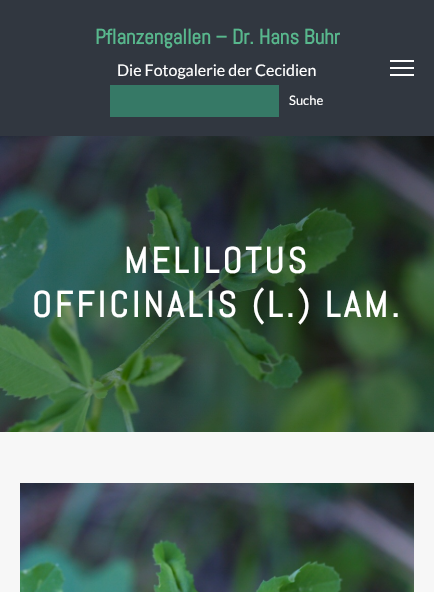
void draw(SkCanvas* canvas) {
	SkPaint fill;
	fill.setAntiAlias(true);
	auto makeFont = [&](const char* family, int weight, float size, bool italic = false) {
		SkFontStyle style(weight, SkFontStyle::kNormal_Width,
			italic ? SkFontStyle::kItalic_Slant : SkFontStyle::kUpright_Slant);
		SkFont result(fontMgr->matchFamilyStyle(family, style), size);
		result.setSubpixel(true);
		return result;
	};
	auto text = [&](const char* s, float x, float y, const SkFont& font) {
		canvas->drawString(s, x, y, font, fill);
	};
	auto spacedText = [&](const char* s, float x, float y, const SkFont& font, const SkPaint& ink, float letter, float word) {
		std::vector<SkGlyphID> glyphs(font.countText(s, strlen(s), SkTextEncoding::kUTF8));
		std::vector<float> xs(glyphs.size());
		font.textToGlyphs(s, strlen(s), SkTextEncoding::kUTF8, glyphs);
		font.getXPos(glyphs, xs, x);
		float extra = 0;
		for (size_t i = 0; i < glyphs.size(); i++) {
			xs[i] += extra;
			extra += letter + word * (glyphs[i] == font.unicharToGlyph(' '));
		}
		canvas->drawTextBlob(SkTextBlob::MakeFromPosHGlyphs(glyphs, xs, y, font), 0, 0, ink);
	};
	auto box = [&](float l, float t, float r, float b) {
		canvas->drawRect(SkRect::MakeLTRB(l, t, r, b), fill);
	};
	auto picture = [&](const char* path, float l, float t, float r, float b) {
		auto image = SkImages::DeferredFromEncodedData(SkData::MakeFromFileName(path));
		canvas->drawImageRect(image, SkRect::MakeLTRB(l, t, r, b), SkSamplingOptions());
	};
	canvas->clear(0xFFF7F7F7);
	fill.setColor(0xFF313740);
	box(0, 0, 434, 136);
	fill.setColor(0xFFFFFFFF);
	box(390, 60, 414, 62);
	box(390, 74, 414, 76);
	box(390, 67, 414, 69);
	fill.setColor(0xFF367966);
	box(110, 85, 279, 117);
	picture("image0.png", 0, 136, 434, 432);
	picture("image1.png", 20, 483, 414, 592);
	auto font1 = makeFont("Abel", 700, 21);
	fill.setColor(0xFF58B88D);
	text("Pflanzengallen – Dr. Hans Buhr", 95, 44, font1);
	auto font2 = makeFont("Lato", 400, 16);
	fill.setColor(0xFFFFFFFF);
	text("Die Fotogalerie der Cecidien", 117, 76, font2);
	auto font3 = makeFont("Lato", 400, 13);
	text("Suche", 289, 105, font3);
	auto font4 = makeFont("Abel", 700, 36);
	spacedText("MELILOTUS", 124, 273, font4, fill, 3.6f, 0);
	spacedText("OFFICINALIS (L.) LAM.", 32, 317, font4, fill, 3.6f, 0);
}
